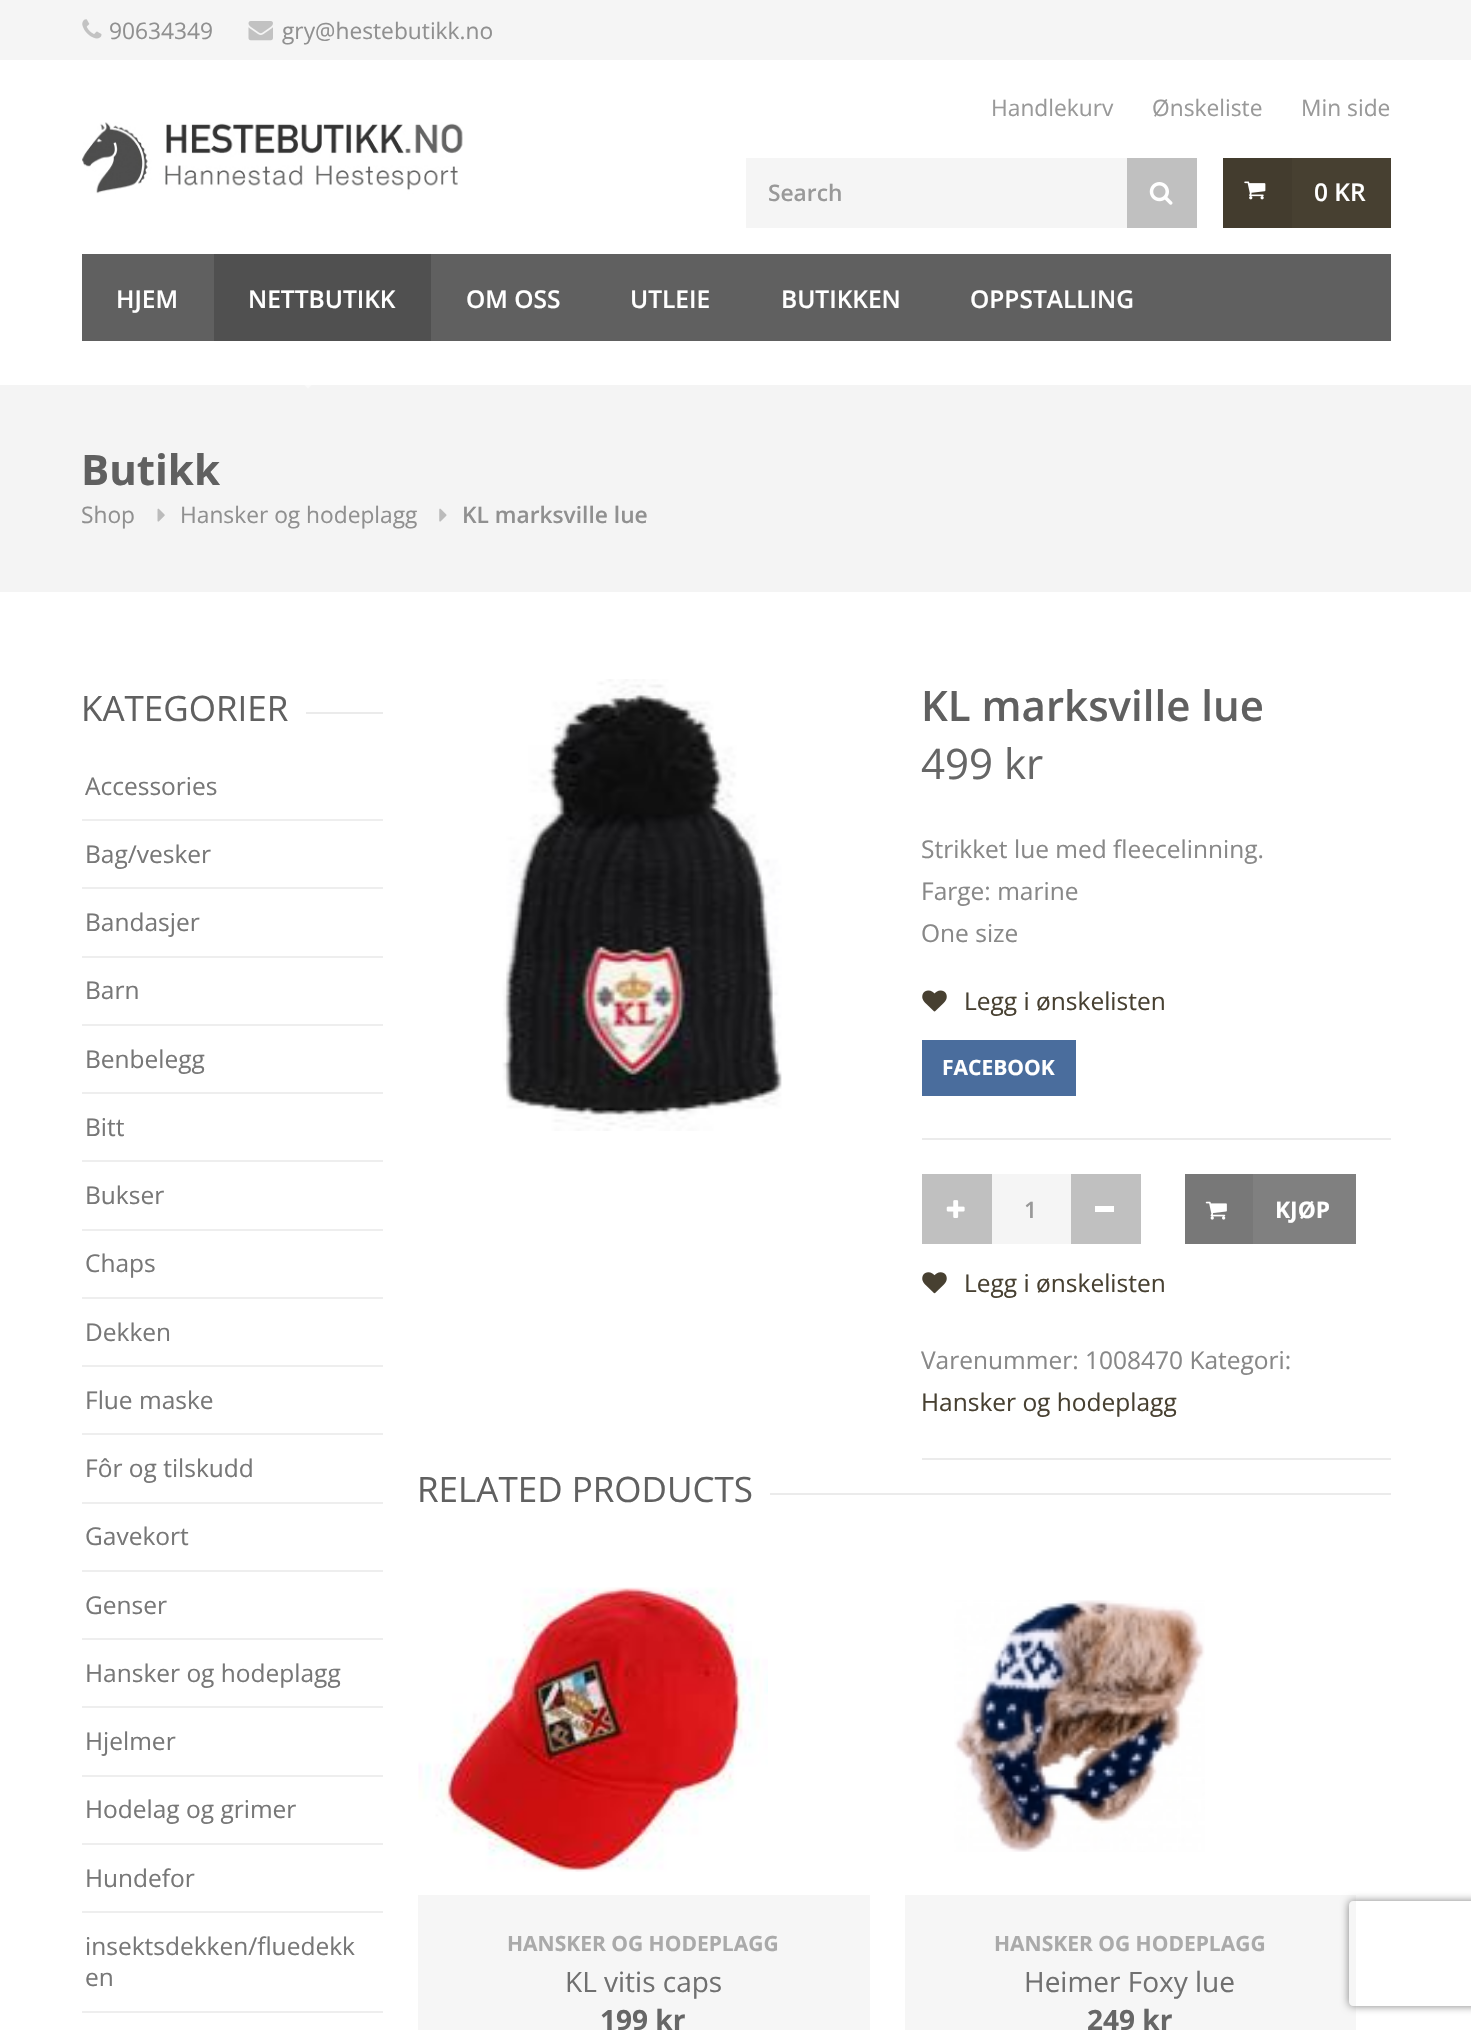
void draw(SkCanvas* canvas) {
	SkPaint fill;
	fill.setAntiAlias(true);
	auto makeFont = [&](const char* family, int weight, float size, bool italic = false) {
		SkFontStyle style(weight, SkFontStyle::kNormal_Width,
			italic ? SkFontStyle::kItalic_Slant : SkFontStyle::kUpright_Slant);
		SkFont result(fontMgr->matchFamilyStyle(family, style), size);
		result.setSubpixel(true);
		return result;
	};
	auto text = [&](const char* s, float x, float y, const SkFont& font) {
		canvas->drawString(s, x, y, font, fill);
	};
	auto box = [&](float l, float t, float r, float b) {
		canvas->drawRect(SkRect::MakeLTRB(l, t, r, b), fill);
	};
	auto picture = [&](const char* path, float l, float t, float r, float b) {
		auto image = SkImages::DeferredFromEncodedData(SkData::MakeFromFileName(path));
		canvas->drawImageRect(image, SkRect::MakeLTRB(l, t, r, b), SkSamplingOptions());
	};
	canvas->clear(0xFFFFFFFF);
	fill.setColor(0xFFF5F5F5);
	box(0, 0, 1471, 60);
	picture("image0.png", 82, 19, 102, 39);
	picture("image1.png", 248, 21, 273, 41);
	picture("image2.png", 82, 122, 463, 194);
	box(746, 158, 1127, 228);
	fill.setColor(0xFFC0C0C0);
	box(1127, 158, 1197, 228);
	picture("image3.png", 1149, 182, 1173, 205);
	fill.setColor(0xFF474031);
	box(1292, 158, 1391, 228);
	fill.setColor(0xFF433C2E);
	box(1223, 158, 1292, 228);
	picture("image4.png", 1244, 181, 1266, 200);
	fill.setColor(0xFF606060);
	box(82, 254, 1391, 341);
	fill.setColor(0xFF505050);
	box(214, 254, 431, 341);
	fill.setColor(0xFFF4F4F4);
	box(0, 385, 1471, 592);
	fill.setColor(0x80FFFFFF);
	canvas->drawPath(SkPathBuilder().moveTo(301, 381.5f).lineTo(315, 381.5f).lineTo(308, 388.5f).close().detach(), fill);
	picture("image5.png", 157, 508, 165, 522);
	picture("image6.png", 439, 508, 447, 522);
	fill.setColor(0xFFEBEBEB);
	box(306, 712, 383, 714);
	fill.setColor(0xFFEEEEEE);
	box(82, 819, 383, 821);
	box(82, 887, 383, 889);
	box(82, 956, 383, 958);
	box(82, 1024, 383, 1026);
	box(82, 1092, 383, 1094);
	box(82, 1160, 383, 1162);
	box(82, 1229, 383, 1231);
	box(82, 1297, 383, 1299);
	box(82, 1365, 383, 1367);
	box(82, 1433, 383, 1435);
	box(82, 1502, 383, 1504);
	box(82, 1570, 383, 1572);
	box(82, 1638, 383, 1640);
	box(82, 1706, 383, 1708);
	box(82, 1775, 383, 1777);
	box(82, 1843, 383, 1845);
	box(82, 1911, 383, 1913);
	box(82, 2011, 383, 2013);
	picture("image7.png", 502, 679, 782, 1131);
	fill.setColor(0xFFEBEBEB);
	box(922, 1458, 1391, 1460);
	box(922, 1138, 1391, 1140);
	picture("image8.png", 922, 990, 947, 1012);
	fill.setColor(0xFF4A6D9D);
	box(922, 1040, 1076, 1096);
	fill.setColor(0xFFC0C0C0);
	box(922, 1174, 992, 1244);
	picture("image9.png", 946, 1200, 965, 1218);
	fill.setColor(0xFFF5F5F5);
	box(992, 1174, 1071, 1244);
	fill.setColor(0xFFC0C0C0);
	box(1071, 1174, 1141, 1244);
	fill.setColor(0xFFFFFFFF);
	box(1095, 1206, 1114, 1212);
	fill.setColor(0xFF808080);
	box(1253, 1174, 1356, 1244);
	fill.setColor(0xFF787878);
	box(1185, 1174, 1253, 1244);
	picture("image10.png", 1205, 1201, 1227, 1220);
	picture("image11.png", 922, 1272, 947, 1294);
	fill.setColor(0xFFEBEBEB);
	box(770, 1493, 1391, 1495);
	picture("image12.png", 418, 1587, 768, 1872);
	fill.setColor(0xFFF6F6F6);
	box(418, 1895, 870, 2030);
	picture("image13.png", 954, 1600, 1205, 1852);
	box(905, 1895, 1356, 2030);
	canvas->save();
	canvas->clipPath(SkPathBuilder(SkPathFillType::kEvenOdd).moveTo(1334, 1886).lineTo(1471, 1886).lineTo(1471, 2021).lineTo(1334, 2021).close().moveTo(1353, 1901).lineTo(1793, 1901).cubicTo(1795, 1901, 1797, 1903, 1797, 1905).lineTo(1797, 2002).cubicTo(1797, 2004, 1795, 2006, 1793, 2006).lineTo(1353, 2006).cubicTo(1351, 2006, 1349, 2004, 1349, 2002).lineTo(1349, 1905).cubicTo(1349, 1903, 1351, 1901, 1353, 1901).close().detach(), true);
	fill.setColor(0xFF808080);
	fill.setMaskFilter(SkMaskFilter::MakeBlur(kNormal_SkBlurStyle, 4.5f));
	canvas->drawRoundRect(SkRect::MakeLTRB(1349, 1901, 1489, 2006), 4, 4, fill);
	fill.setMaskFilter(nullptr);
	canvas->restore();
	auto font1 = makeFont("Open Sans", 400, 22.75f);
	fill.setColor(0xFF909090);
	text("90634349", 109, 39, font1);
	text("gry@hestebutikk.no", 282, 39, font1);
	fill.setColor(0xFF999999);
	text("Handlekurv", 991, 116, font1);
	text("Ønskeliste", 1152, 116, font1);
	text("Min side", 1301, 116, font1);
	auto font2 = makeFont("Open Sans", 600, 22.75f);
	text("Search", 768, 201, font2);
	auto font3 = makeFont("Open Sans", 600, 24.5f);
	fill.setColor(0xFFFFFFFF);
	text("0 KR", 1314, 201, font3);
	text("HJEM", 116, 308, font3);
	text("NETTBUTIKK", 248, 308, font3);
	text("OM OSS", 466, 308, font3);
	text("UTLEIE", 630, 308, font3);
	text("BUTIKKEN", 781, 308, font3);
	text("OPPSTALLING", 970, 308, font3);
	auto font4 = makeFont("Open Sans", 700, 42);
	fill.setColor(0xFF606060);
	text("Butikk", 81, 485, font4);
	fill.setColor(0xFF909090);
	text("Shop", 81, 523, font1);
	text("Hansker og hodeplagg", 180, 523, font1);
	text("KL marksville lue", 462, 523, font2);
	auto font5 = makeFont("Open Sans", 400, 35);
	fill.setColor(0xFF606060);
	text("KATEGORIER", 81, 721, font5);
	auto font6 = makeFont("Open Sans", 400, 24.5f);
	fill.setColor(0xFF777777);
	text("Accessories", 85, 795, font6);
	text("Bag/vesker", 85, 863, font6);
	text("Bandasjer", 85, 931, font6);
	text("Barn", 85, 999, font6);
	text("Benbelegg", 85, 1068, font6);
	text("Bitt", 85, 1136, font6);
	text("Bukser", 85, 1204, font6);
	text("Chaps", 85, 1272, font6);
	text("Dekken", 85, 1341, font6);
	text("Flue maske", 85, 1409, font6);
	text("Fôr og tilskudd", 85, 1477, font6);
	text("Gavekort", 85, 1545, font6);
	text("Genser", 85, 1614, font6);
	text("Hansker og hodeplagg", 85, 1682, font6);
	text("Hjelmer", 85, 1750, font6);
	text("Hodelag og grimer", 85, 1818, font6);
	text("Hundefor", 85, 1887, font6);
	text("insektsdekken/fluedekk", 85, 1955, font6);
	text("en", 85, 1986, font6);
	auto font7 = makeFont("Open Sans", 600, 42);
	fill.setColor(0xFF606060);
	text("KL marksville lue", 921, 721, font7);
	auto font8 = makeFont("Open Sans", 400, 42);
	fill.setColor(0xFF666666);
	text("499 kr", 921, 779, font8);
	fill.setColor(0xFF888888);
	text("Strikket lue med fleecelinning.", 921, 858, font6);
	text("Farge: marine", 921, 900, font6);
	text("One size", 921, 942, font6);
	fill.setColor(0xFF474031);
	text("Legg i ønskelisten", 964, 1010, font6);
	auto font9 = makeFont("Open Sans", 700, 21);
	fill.setColor(0xFFFFFFFF);
	text("FACEBOOK", 942, 1075, font9);
	fill.setColor(0xFF999999);
	text("1", 1024, 1218, font2);
	auto font10 = makeFont("Open Sans", 700, 22.75f);
	fill.setColor(0xFFFFFFFF);
	text("KJØP", 1275, 1218, font10);
	fill.setColor(0xFF474031);
	text("Legg i ønskelisten", 964, 1292, font6);
	fill.setColor(0xFF888888);
	text("Varenummer: 1008470 Kategori:", 921, 1369, font6);
	fill.setColor(0xFF474031);
	text("Hansker og hodeplagg", 921, 1411, font6);
	fill.setColor(0xFF606060);
	text("RELATED PRODUCTS", 417, 1502, font5);
	fill.setColor(0xFFAAAAAA);
	text("HANSKER OG HODEPLAGG", 507, 1951, font9);
	auto font11 = makeFont("Open Sans", 400, 28);
	fill.setColor(0xFF707070);
	text("KL vitis caps", 565, 1992, font11);
	auto font12 = makeFont("Open Sans", 700, 28);
	fill.setColor(0xFF666666);
	text("199 kr", 600, 2030, font12);
	fill.setColor(0xFFAAAAAA);
	text("HANSKER OG HODEPLAGG", 994, 1951, font9);
	fill.setColor(0xFF707070);
	text("Heimer Foxy lue", 1024, 1992, font11);
	fill.setColor(0xFF666666);
	text("249 kr", 1087, 2030, font12);
}
